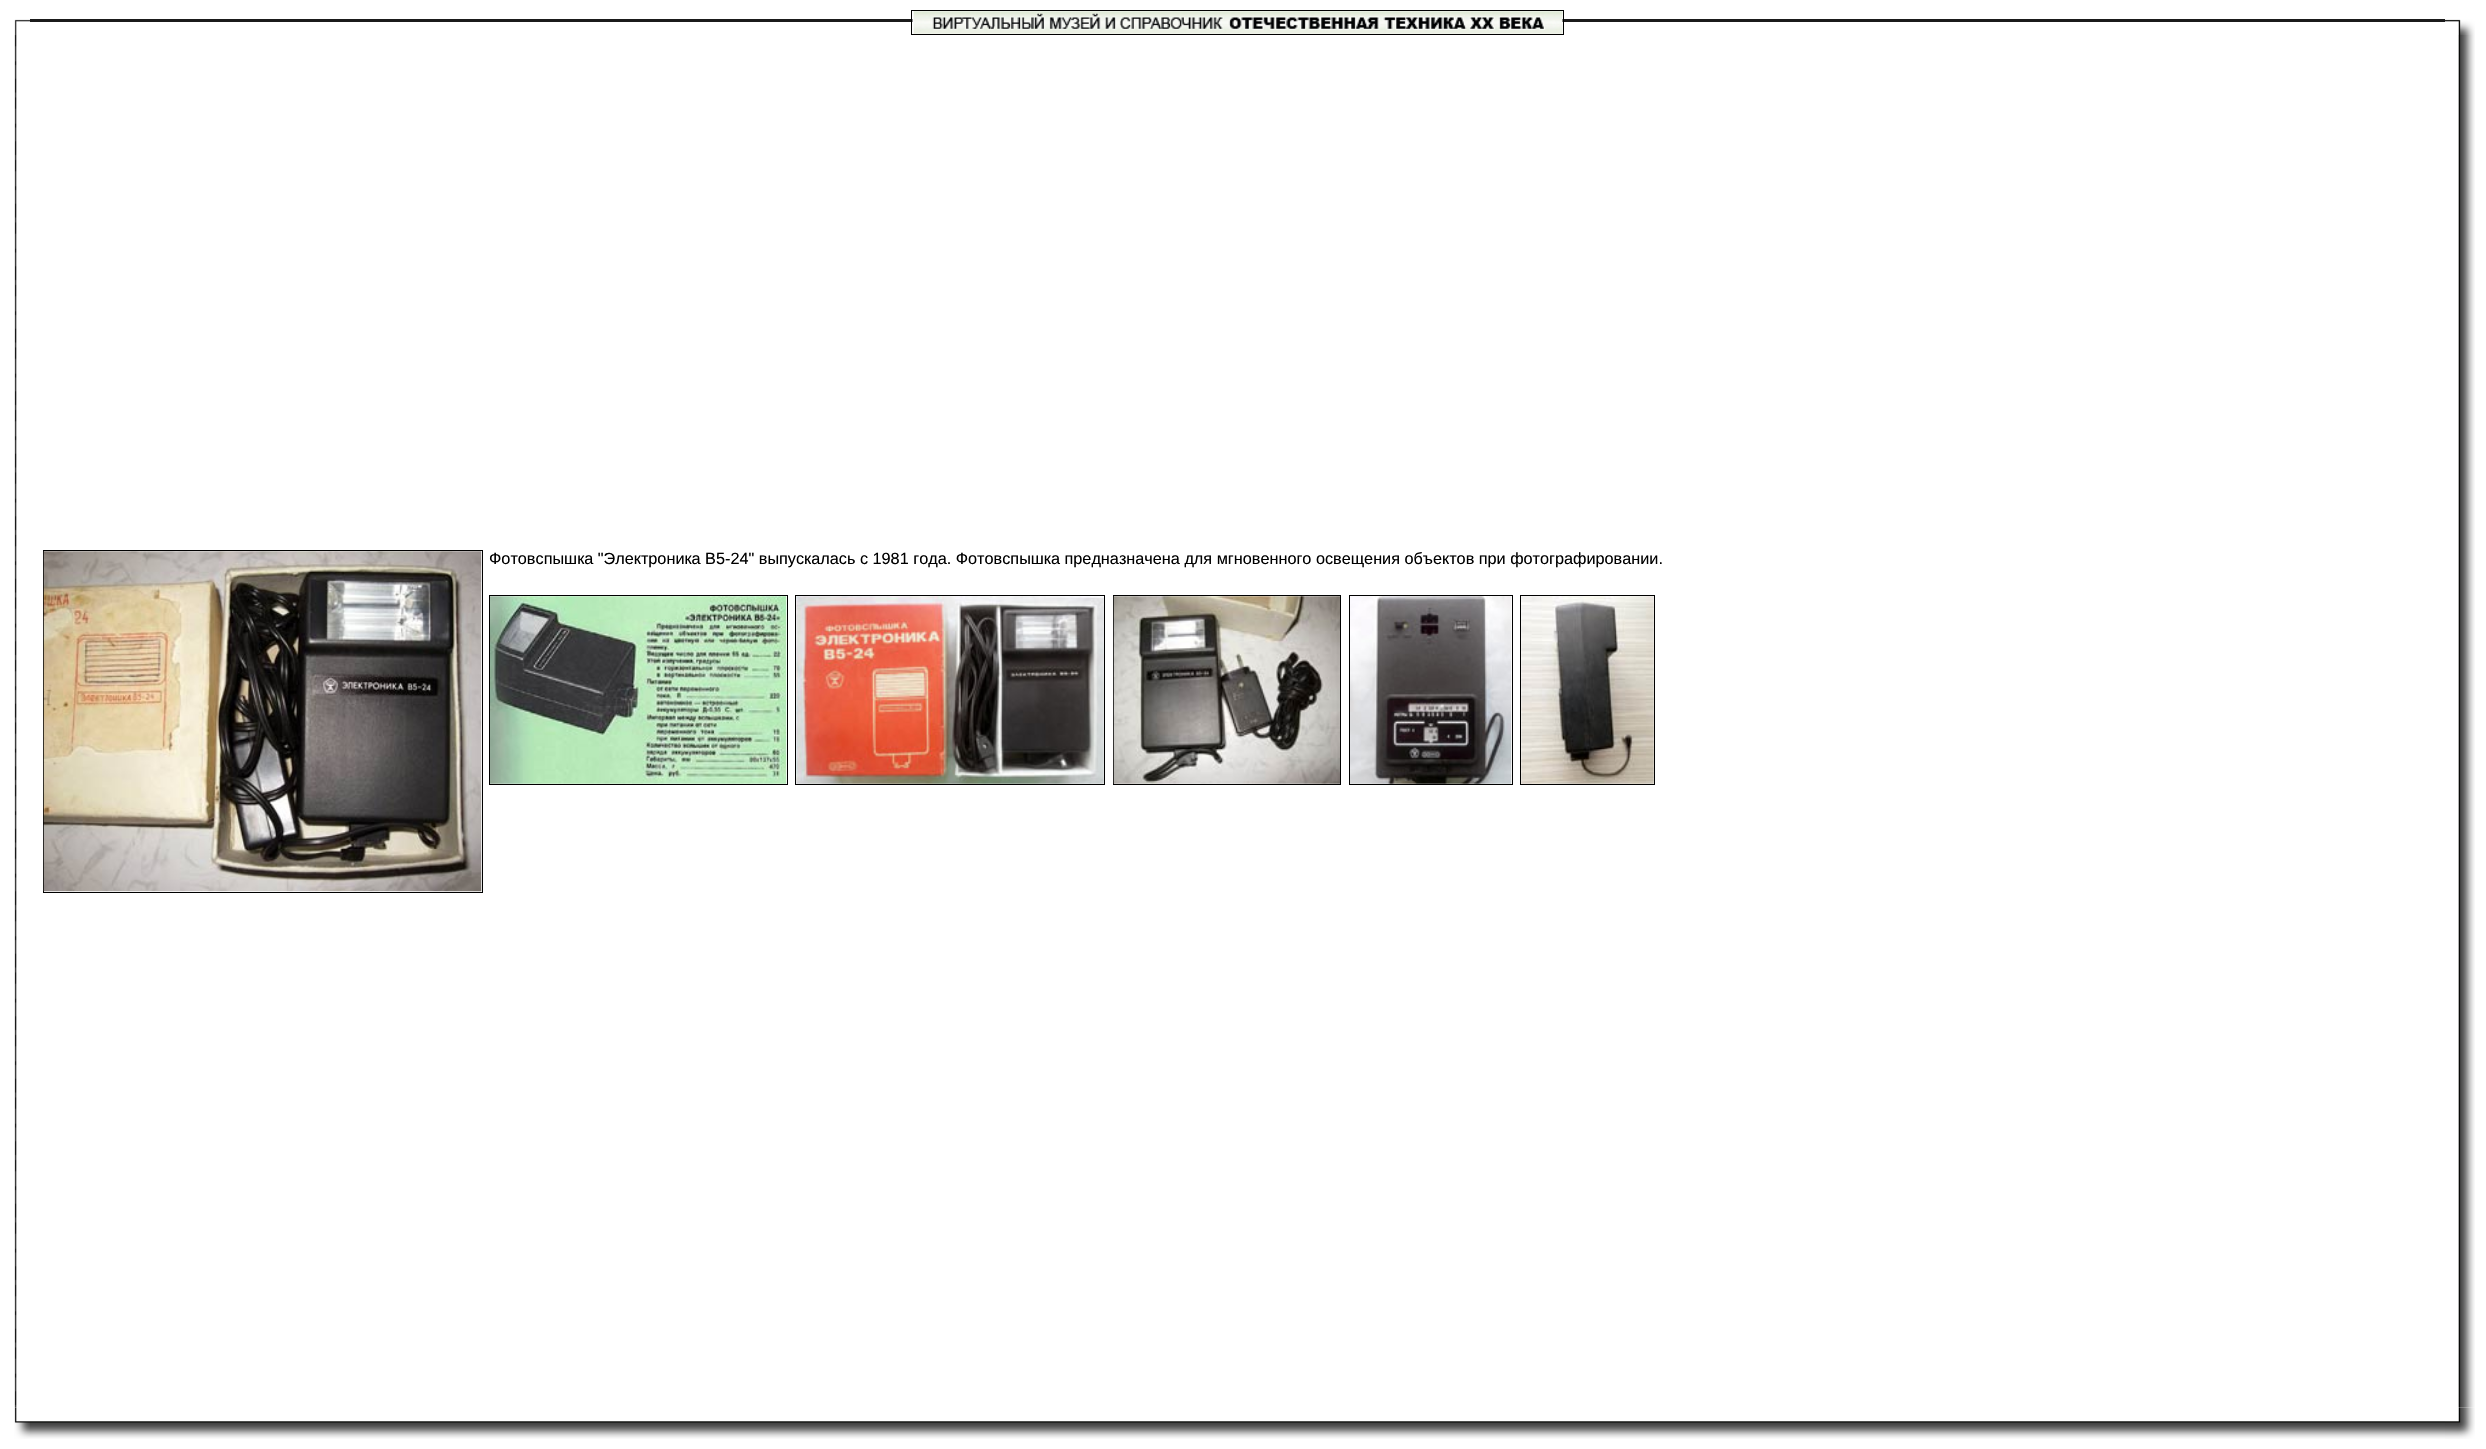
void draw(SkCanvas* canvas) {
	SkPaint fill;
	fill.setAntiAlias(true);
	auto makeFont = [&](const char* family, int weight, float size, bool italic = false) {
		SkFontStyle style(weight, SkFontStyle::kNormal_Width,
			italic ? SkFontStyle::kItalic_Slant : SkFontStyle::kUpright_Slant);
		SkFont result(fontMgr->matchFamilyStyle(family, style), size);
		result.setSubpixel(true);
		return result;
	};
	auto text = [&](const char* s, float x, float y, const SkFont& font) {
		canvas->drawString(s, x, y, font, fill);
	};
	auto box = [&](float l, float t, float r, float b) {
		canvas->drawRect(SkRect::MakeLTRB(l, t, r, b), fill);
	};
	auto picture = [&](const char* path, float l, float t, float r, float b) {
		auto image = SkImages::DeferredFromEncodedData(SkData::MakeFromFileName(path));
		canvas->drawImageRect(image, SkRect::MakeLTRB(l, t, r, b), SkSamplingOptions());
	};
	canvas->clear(0xFFFFFFFF);
	picture("image0.png", 14, 19, 30, 35);
	fill.setColor(0xFF1B1B1B);
	box(30, 19, 2445, 22);
	fill.setStyle(SkPaint::kStroke_Style);
	fill.setStrokeWidth(1);
	fill.setColor(0xFF000000);
	canvas->drawRect(SkRect::MakeLTRB(911.5f, 10.5f, 1563.5f, 34.5f), fill);
	picture("image1.png", 912, 11, 1563, 34);
	picture("image2.png", 2445, 19, 2475, 35);
	picture("image3.png", 14, 35, 17, 1408);
	canvas->drawRect(SkRect::MakeLTRB(43.5f, 550.5f, 482.5f, 892.5f), fill);
	picture("image4.png", 43, 551, 482, 892);
	canvas->drawRect(SkRect::MakeLTRB(489.5f, 595.5f, 787.5f, 784.5f), fill);
	canvas->drawRect(SkRect::MakeLTRB(795.5f, 595.5f, 1104.5f, 784.5f), fill);
	canvas->drawRect(SkRect::MakeLTRB(1113.5f, 595.5f, 1340.5f, 784.5f), fill);
	canvas->drawRect(SkRect::MakeLTRB(1349.5f, 595.5f, 1512.5f, 784.5f), fill);
	canvas->drawRect(SkRect::MakeLTRB(1520.5f, 595.5f, 1654.5f, 784.5f), fill);
	picture("image5.png", 490, 596, 787, 784);
	picture("image6.png", 796, 596, 1104, 784);
	picture("image7.png", 1113, 596, 1340, 784);
	picture("image8.png", 1350, 596, 1512, 784);
	picture("image9.png", 1521, 596, 1654, 784);
	picture("image10.png", 2458, 35, 2475, 1408);
	picture("image11.png", 14, 1407, 30, 1439);
	picture("image12.png", 30, 1421, 2445, 1439);
	picture("image13.png", 2445, 1407, 2475, 1439);
	auto font1 = makeFont("Liberation Sans", 400, 16.25f);
	fill.setStyle(SkPaint::kFill_Style);
	text("Фотовспышка \"Электроника В5-24\" выпускалась с 1981 года. Фотовспышка предназначена для мгновенного освещения объектов при фотографировании.", 489, 564, font1);
}
